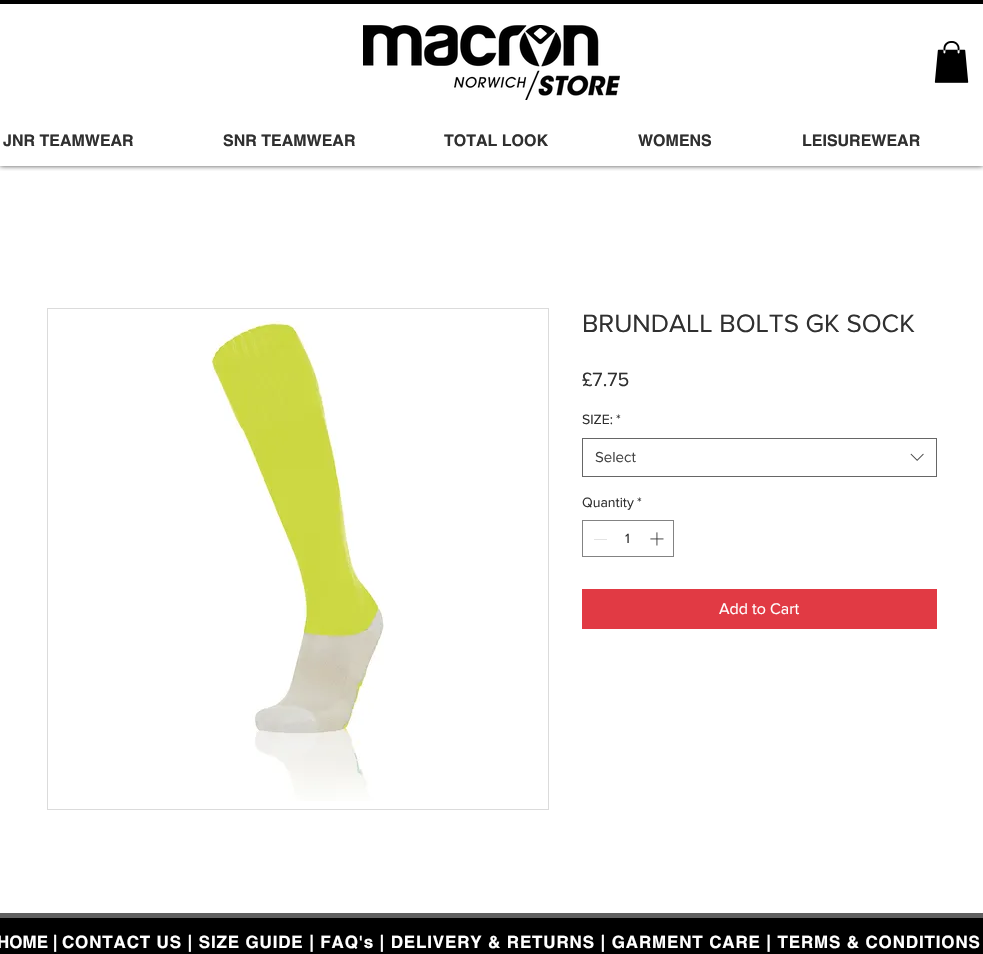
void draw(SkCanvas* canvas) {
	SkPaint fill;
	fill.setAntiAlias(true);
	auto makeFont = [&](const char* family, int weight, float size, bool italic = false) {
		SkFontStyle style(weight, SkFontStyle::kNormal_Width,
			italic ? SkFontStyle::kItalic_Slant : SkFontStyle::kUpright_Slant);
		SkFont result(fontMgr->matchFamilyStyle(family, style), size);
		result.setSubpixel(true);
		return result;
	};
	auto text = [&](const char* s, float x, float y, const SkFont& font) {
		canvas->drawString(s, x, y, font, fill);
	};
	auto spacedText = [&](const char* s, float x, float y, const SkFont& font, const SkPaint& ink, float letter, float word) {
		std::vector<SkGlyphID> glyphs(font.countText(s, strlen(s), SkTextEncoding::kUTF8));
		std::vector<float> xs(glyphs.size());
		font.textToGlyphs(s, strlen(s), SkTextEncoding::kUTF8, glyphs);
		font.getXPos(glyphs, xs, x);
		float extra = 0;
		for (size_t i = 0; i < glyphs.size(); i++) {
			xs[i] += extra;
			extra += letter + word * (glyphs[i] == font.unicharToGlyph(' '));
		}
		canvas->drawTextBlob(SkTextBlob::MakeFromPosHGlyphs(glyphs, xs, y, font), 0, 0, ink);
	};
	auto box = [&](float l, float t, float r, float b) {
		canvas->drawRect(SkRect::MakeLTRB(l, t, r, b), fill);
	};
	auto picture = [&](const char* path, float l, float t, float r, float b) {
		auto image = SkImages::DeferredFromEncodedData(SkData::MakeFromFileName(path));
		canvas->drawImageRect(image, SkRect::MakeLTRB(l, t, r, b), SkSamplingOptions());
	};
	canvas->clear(0xFFFFFFFF);
	canvas->save();
	canvas->clipRect(SkRect::MakeLTRB(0, 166, 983, 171));
	fill.setColor(0xB3000000);
	fill.setMaskFilter(SkMaskFilter::MakeBlur(kNormal_SkBlurStyle, 2.5f));
	canvas->drawRect(SkRect::MakeLTRB(0, -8, 983, 166), fill);
	fill.setMaskFilter(nullptr);
	canvas->restore();
	fill.setColor(0xFF000000);
	box(0, 0, 983, 4);
	picture("image0.png", 363, 25, 620, 100);
	picture("image1.png", 934, 41, 969, 83);
	fill.setStyle(SkPaint::kStroke_Style);
	fill.setStrokeWidth(1);
	fill.setColor(0xFFDBDBDB);
	canvas->drawRect(SkRect::MakeLTRB(47.5f, 308.5f, 548.5f, 809.5f), fill);
	picture("image2.png", 211, 321, 384, 801);
	fill.setColor(0xFF666666);
	canvas->drawRect(SkRect::MakeLTRB(582.5f, 438.5f, 936.5f, 476.5f), fill);
	picture("image3.png", 910, 453, 924, 461);
	fill.setColor(0xFF838383);
	canvas->drawRect(SkRect::MakeLTRB(582.5f, 520.5f, 673.5f, 556.5f), fill);
	fill.setStyle(SkPaint::kFill_Style);
	fill.setColor(0xFFE3E3E3);
	box(594, 539, 607, 540);
	picture("image4.png", 650, 532, 664, 546);
	fill.setColor(0xFFE13A44);
	box(582, 589, 937, 629);
	fill.setColor(0xFF000000);
	box(0, 918, 983, 954);
	fill.setColor(0xFF606060);
	box(0, 913, 983, 918);
	auto font1 = makeFont("helvetica", 700, 16);
	fill.setColor(0xFF303030);
	text("JNR TEAMWEAR", 3, 146, font1);
	text("SNR TEAMWEAR", 223, 146, font1);
	text("TOTAL LOOK", 444, 146, font1);
	text("WOMENS", 638, 146, font1);
	text("LEISUREWEAR", 802, 146, font1);
	auto font2 = makeFont("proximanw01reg", 400, 26);
	text("BRUNDALL BOLTS GK SOCK", 582, 332, font2);
	auto font3 = makeFont("proximanw01reg", 400, 20);
	text("£7.75", 582, 386, font3);
	auto font4 = makeFont("proximanw01reg", 400, 14);
	text("SIZE:", 582, 424, font4);
	text("*", 616, 424, font4);
	auto font5 = makeFont("proximanw01reg", 400, 15);
	fill.setColor(0xFF444444);
	text("Select", 595, 462, font5);
	fill.setColor(0xFF303030);
	text("Quantity", 582, 507, font4);
	text("*", 637, 507, font4);
	text("1", 625, 543, font4);
	auto font6 = makeFont("proximanw01reg", 400, 16);
	fill.setColor(0xFFFFFFFF);
	text("Add to Cart", 719, 614, font6);
	auto font7 = makeFont("helvetica", 700, 17);
	text("HOME |", -3, 948, font7);
	spacedText("CONTACT US | SIZE GUIDE | FAQ's | DELIVERY & RETURNS | GARMENT CARE | TERMS & CONDITIONS", 62, 948, font7, fill, 0.85f, 0);
}
